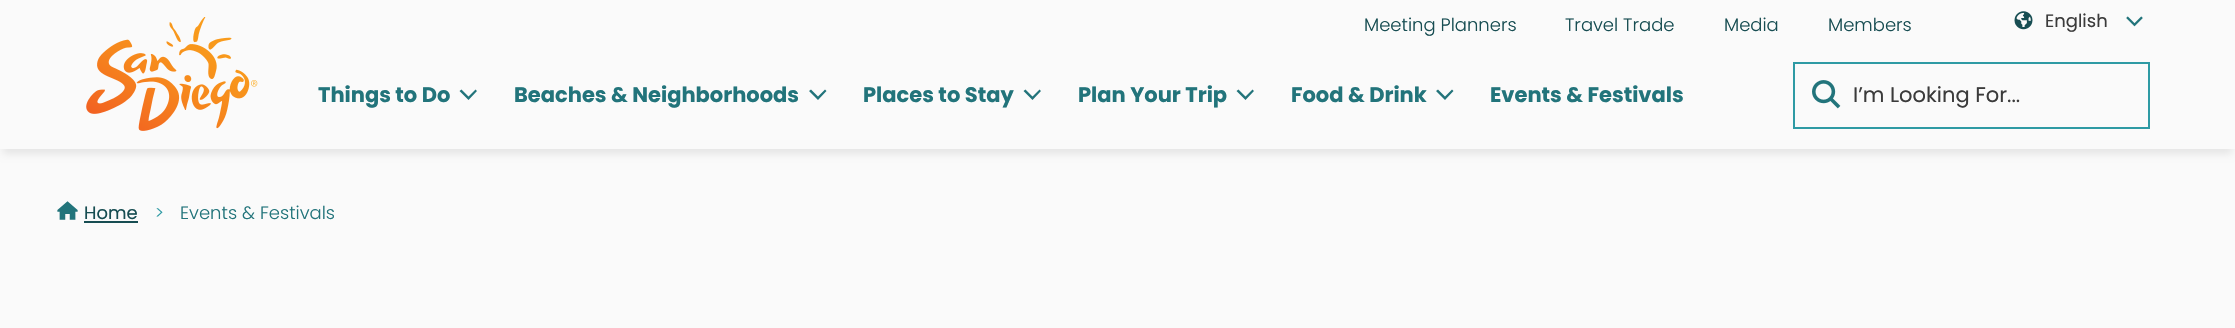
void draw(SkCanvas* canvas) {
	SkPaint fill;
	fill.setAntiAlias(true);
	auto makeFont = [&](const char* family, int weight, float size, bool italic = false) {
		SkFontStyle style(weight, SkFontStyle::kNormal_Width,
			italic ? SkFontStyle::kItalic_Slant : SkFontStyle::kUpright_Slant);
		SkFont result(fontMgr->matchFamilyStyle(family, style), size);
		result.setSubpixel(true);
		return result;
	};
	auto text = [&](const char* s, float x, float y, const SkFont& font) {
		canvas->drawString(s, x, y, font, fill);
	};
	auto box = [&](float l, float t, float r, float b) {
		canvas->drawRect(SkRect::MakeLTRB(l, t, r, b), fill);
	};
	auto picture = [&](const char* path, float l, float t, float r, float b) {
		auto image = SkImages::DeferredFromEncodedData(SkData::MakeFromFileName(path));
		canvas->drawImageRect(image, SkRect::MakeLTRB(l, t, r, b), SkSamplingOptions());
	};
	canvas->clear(0xFFFAFAFA);
	picture("image0.png", 86, 17, 258, 131);
	picture("image1.png", 2014, 11, 2033, 30);
	picture("image2.png", 2126, 16, 2143, 27);
	fill.setColor(0xFF22747B);
	canvas->drawPath(SkPathBuilder().moveTo(468.5f, 100).lineTo(477, 91).lineTo(475.5f, 89.5f).lineTo(468.5f, 96.5f).lineTo(461.5f, 89.5f).lineTo(459.5f, 91).close().detach(), fill);
	canvas->drawPath(SkPathBuilder().moveTo(818, 100).lineTo(826.5f, 91).lineTo(825, 89.5f).lineTo(818, 96.5f).lineTo(811, 89.5f).lineTo(809, 91).close().detach(), fill);
	canvas->drawPath(SkPathBuilder().moveTo(1032.5f, 100).lineTo(1041, 91).lineTo(1039.5f, 89.5f).lineTo(1032.5f, 96.5f).lineTo(1025.5f, 89.5f).lineTo(1023.5f, 91).close().detach(), fill);
	canvas->drawPath(SkPathBuilder().moveTo(1245.5f, 100).lineTo(1254, 91).lineTo(1252.5f, 89.5f).lineTo(1245.5f, 96.5f).lineTo(1238.5f, 89.5f).lineTo(1236.5f, 91).close().detach(), fill);
	canvas->drawPath(SkPathBuilder().moveTo(1445, 100).lineTo(1453.5f, 91).lineTo(1452, 89.5f).lineTo(1445, 96.5f).lineTo(1438, 89.5f).lineTo(1436, 91).close().detach(), fill);
	fill.setStyle(SkPaint::kStroke_Style);
	fill.setStrokeWidth(2);
	fill.setColor(0xFF2E9AA4);
	canvas->drawRect(SkRect::MakeLTRB(1794, 63, 2149, 128), fill);
	picture("image3.png", 1812, 80, 1841, 109);
	canvas->save();
	canvas->clipPath(SkPathBuilder(SkPathFillType::kEvenOdd).moveTo(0, 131).lineTo(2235, 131).lineTo(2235, 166).lineTo(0, 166).close().moveTo(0, 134).lineTo(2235, 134).lineTo(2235, 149).lineTo(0, 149).close().detach(), true);
	fill.setStyle(SkPaint::kFill_Style);
	fill.setColor(0x1A000000);
	fill.setMaskFilter(SkMaskFilter::MakeBlur(kNormal_SkBlurStyle, 4));
	canvas->drawRect(SkRect::MakeLTRB(3, 144, 2232, 153), fill);
	fill.setMaskFilter(nullptr);
	canvas->restore();
	picture("image4.png", 57, 201, 78, 220);
	fill.setColor(0xFF174D52);
	box(84, 221, 138, 223);
	auto font1 = makeFont("Poppins", 300, 18);
	text("Meeting Planners", 1364, 31, font1);
	text("Travel Trade", 1565, 31, font1);
	text("Media", 1724, 31, font1);
	text("Members", 1828, 31, font1);
	auto font2 = makeFont("Poppins", 400, 18);
	fill.setColor(0xFF3B3B3B);
	text("English", 2045, 27, font2);
	auto font3 = makeFont("Poppins", 700, 21);
	fill.setColor(0xFF22747B);
	text("Things to Do", 318, 102, font3);
	text("Beaches & Neighborhoods", 514, 102, font3);
	text("Places to Stay", 863, 102, font3);
	text("Plan Your Trip", 1078, 102, font3);
	text("Food & Drink", 1291, 102, font3);
	text("Events & Festivals", 1490, 102, font3);
	auto font4 = makeFont("Poppins", 400, 21);
	fill.setColor(0xFF3B3B3B);
	text("I’m Looking For...", 1853, 102, font4);
	fill.setColor(0xFF174D52);
	text("Home", 84, 219, font2);
	fill.setColor(0xFF2E9AA4);
	text(">", 155, 219, font1);
	fill.setColor(0xFF22747B);
	text("Events & Festivals", 180, 219, font1);
}
